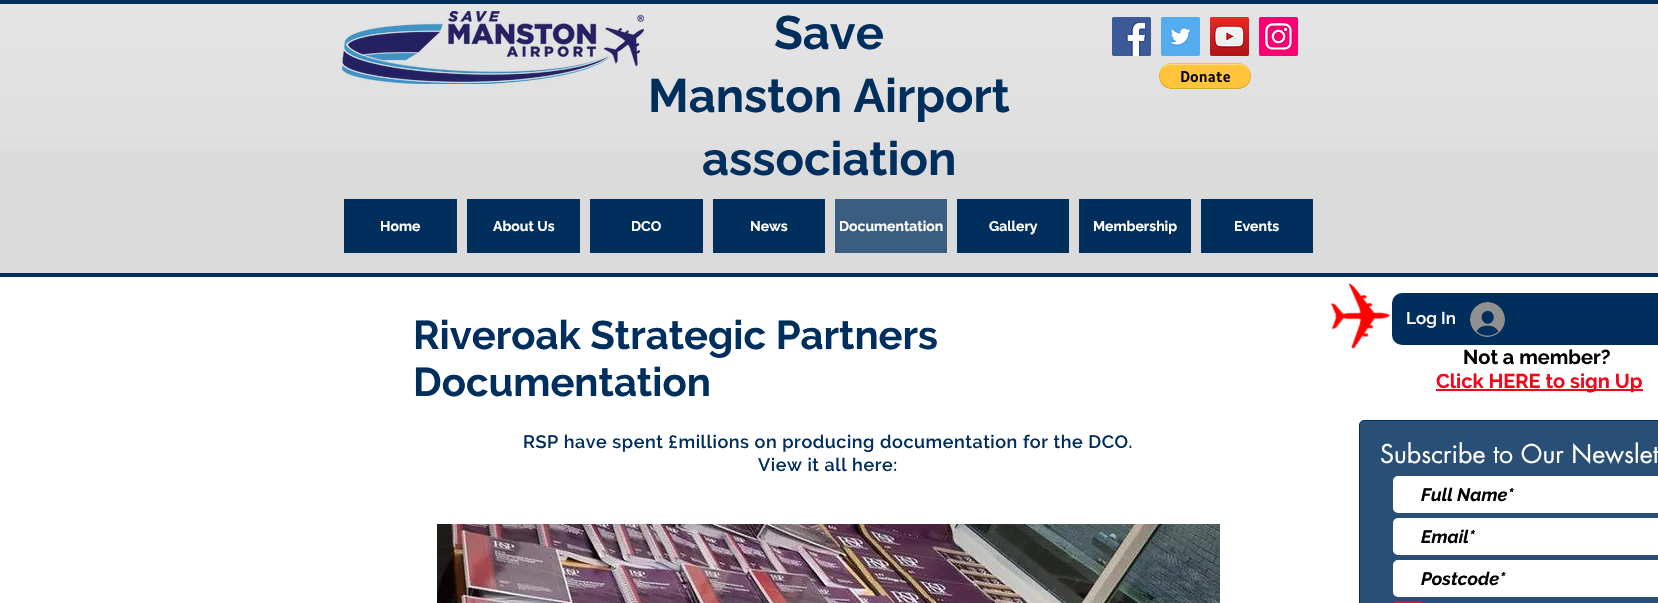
void draw(SkCanvas* canvas) {
	SkPaint fill;
	fill.setAntiAlias(true);
	auto makeFont = [&](const char* family, int weight, float size, bool italic = false) {
		SkFontStyle style(weight, SkFontStyle::kNormal_Width,
			italic ? SkFontStyle::kItalic_Slant : SkFontStyle::kUpright_Slant);
		SkFont result(fontMgr->matchFamilyStyle(family, style), size);
		result.setSubpixel(true);
		return result;
	};
	auto text = [&](const char* s, float x, float y, const SkFont& font) {
		canvas->drawString(s, x, y, font, fill);
	};
	auto spacedText = [&](const char* s, float x, float y, const SkFont& font, const SkPaint& ink, float letter, float word) {
		std::vector<SkGlyphID> glyphs(font.countText(s, strlen(s), SkTextEncoding::kUTF8));
		std::vector<float> xs(glyphs.size());
		font.textToGlyphs(s, strlen(s), SkTextEncoding::kUTF8, glyphs);
		font.getXPos(glyphs, xs, x);
		float extra = 0;
		for (size_t i = 0; i < glyphs.size(); i++) {
			xs[i] += extra;
			extra += letter + word * (glyphs[i] == font.unicharToGlyph(' '));
		}
		canvas->drawTextBlob(SkTextBlob::MakeFromPosHGlyphs(glyphs, xs, y, font), 0, 0, ink);
	};
	auto box = [&](float l, float t, float r, float b) {
		canvas->drawRect(SkRect::MakeLTRB(l, t, r, b), fill);
	};
	auto roundBox = [&](float l, float t, float r, float b, float radius) {
		canvas->drawRoundRect(SkRect::MakeLTRB(l, t, r, b), radius, radius, fill);
	};
	auto picture = [&](const char* path, float l, float t, float r, float b) {
		auto image = SkImages::DeferredFromEncodedData(SkData::MakeFromFileName(path));
		canvas->drawImageRect(image, SkRect::MakeLTRB(l, t, r, b), SkSamplingOptions());
	};
	canvas->clear(0xFFFFFFFF);
	fill.setColor(0xFFDBDBDB);
	box(0, 4, 1658, 273);
	picture("image0.png", 0, 4, 1658, 149);
	fill.setColor(0xFF002E5D);
	box(0, 0, 1658, 4);
	box(0, 273, 1658, 277);
	picture("image1.png", 342, 11, 644, 84);
	picture("image2.png", 1112, 17, 1151, 56);
	picture("image3.png", 1161, 17, 1200, 56);
	picture("image4.png", 1210, 17, 1249, 56);
	picture("image5.png", 1259, 17, 1298, 56);
	picture("image6.png", 1159, 63, 1251, 89);
	box(344, 199, 457, 253);
	box(467, 199, 580, 253);
	box(590, 199, 703, 253);
	box(713, 199, 825, 253);
	fill.setColor(0xFF3B5D7F);
	box(835, 199, 947, 253);
	fill.setColor(0xFF002E5D);
	box(957, 199, 1069, 253);
	box(1079, 199, 1191, 253);
	box(1201, 199, 1313, 253);
	picture("image7.png", 437, 524, 1220, 603);
	picture("image8.png", 1331, 283, 1390, 349);
	roundBox(1392, 293, 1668, 345, 10);
	picture("image9.png", 1470, 302, 1505, 337);
	fill.setColor(0xFFF60419);
	box(1436, 389, 1643, 391);
	fill.setColor(0xFF294F77);
	canvas->drawRoundRect(SkRect::MakeLTRB(1359.5f, 420.5f, 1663.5f, 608.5f), 4.5f, 4.5f, fill);
	fill.setStyle(SkPaint::kStroke_Style);
	fill.setStrokeWidth(1);
	fill.setColor(0xFF002E5D);
	canvas->drawRoundRect(SkRect::MakeLTRB(1359.5f, 420.5f, 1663.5f, 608.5f), 4.5f, 4.5f, fill);
	fill.setStyle(SkPaint::kFill_Style);
	fill.setColor(0xFFFFFFFF);
	canvas->drawRoundRect(SkRect::MakeLTRB(1394.5f, 477.5f, 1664.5f, 511.5f), 3.5f, 3.5f, fill);
	fill.setStyle(SkPaint::kStroke_Style);
	fill.setStrokeWidth(3);
	canvas->drawRoundRect(SkRect::MakeLTRB(1394.5f, 477.5f, 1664.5f, 511.5f), 3.5f, 3.5f, fill);
	fill.setStyle(SkPaint::kFill_Style);
	canvas->drawRoundRect(SkRect::MakeLTRB(1394.5f, 519.5f, 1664.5f, 553.5f), 3.5f, 3.5f, fill);
	fill.setStyle(SkPaint::kStroke_Style);
	canvas->drawRoundRect(SkRect::MakeLTRB(1394.5f, 519.5f, 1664.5f, 553.5f), 3.5f, 3.5f, fill);
	fill.setStyle(SkPaint::kFill_Style);
	canvas->drawRoundRect(SkRect::MakeLTRB(1394.5f, 561.5f, 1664.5f, 595.5f), 3.5f, 3.5f, fill);
	fill.setStyle(SkPaint::kStroke_Style);
	canvas->drawRoundRect(SkRect::MakeLTRB(1394.5f, 561.5f, 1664.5f, 595.5f), 3.5f, 3.5f, fill);
	fill.setStrokeWidth(2);
	fill.setColor(0xFFE21C21);
	canvas->drawRoundRect(SkRect::MakeLTRB(1394, 603, 1422, 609), 4, 4, fill);
	auto font1 = makeFont("Raleway", 700, 47);
	fill.setStyle(SkPaint::kFill_Style);
	fill.setColor(0xFF002E5D);
	text("Save", 774, 49, font1);
	text("Manston Airport", 648, 112, font1);
	text("association", 702, 175, font1);
	auto font2 = makeFont("Raleway", 700, 14);
	fill.setColor(0xFFFFFFFF);
	text("Home", 380, 231, font2);
	text("About Us", 493, 231, font2);
	text("DCO", 631, 231, font2);
	text("News", 750, 231, font2);
	text("Documentation", 839, 231, font2);
	text("Gallery", 989, 231, font2);
	text("Membership", 1093, 231, font2);
	text("Events", 1234, 231, font2);
	auto font3 = makeFont("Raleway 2", 700, 40);
	fill.setColor(0xFF002E5D);
	text("Riveroak Strategic Partners", 413, 349, font3);
	text("Documentation", 413, 396, font3);
	auto font4 = makeFont("Raleway", 600, 18);
	spacedText("RSP have spent £millions on producing documentation for the DCO.", 523, 448, font4, fill, 0.55f, 0);
	spacedText("View it all here:", 758, 471, font4, fill, 0.55f, 0);
	auto font5 = makeFont("Raleway", 600, 17);
	fill.setColor(0xFFFFFFFF);
	text("Log In", 1406, 324, font5);
	auto font6 = makeFont("Raleway 2", 700, 20);
	fill.setColor(0xFF000000);
	text("Not a member?", 1463, 364, font6);
	fill.setColor(0xFFF60419);
	text("Click HERE to sign Up", 1436, 388, font6);
	auto font7 = makeFont("futura", 400, 25);
	fill.setColor(0xFFFFFFFF);
	text("Subscribe to Our Newslet", 1380, 463, font7);
	auto font8 = makeFont("Raleway", 700, 18, true);
	fill.setColor(0xFF000000);
	text("Full Name*", 1421, 501, font8);
	text("Email*", 1421, 543, font8);
	text("Postcode*", 1421, 585, font8);
}
